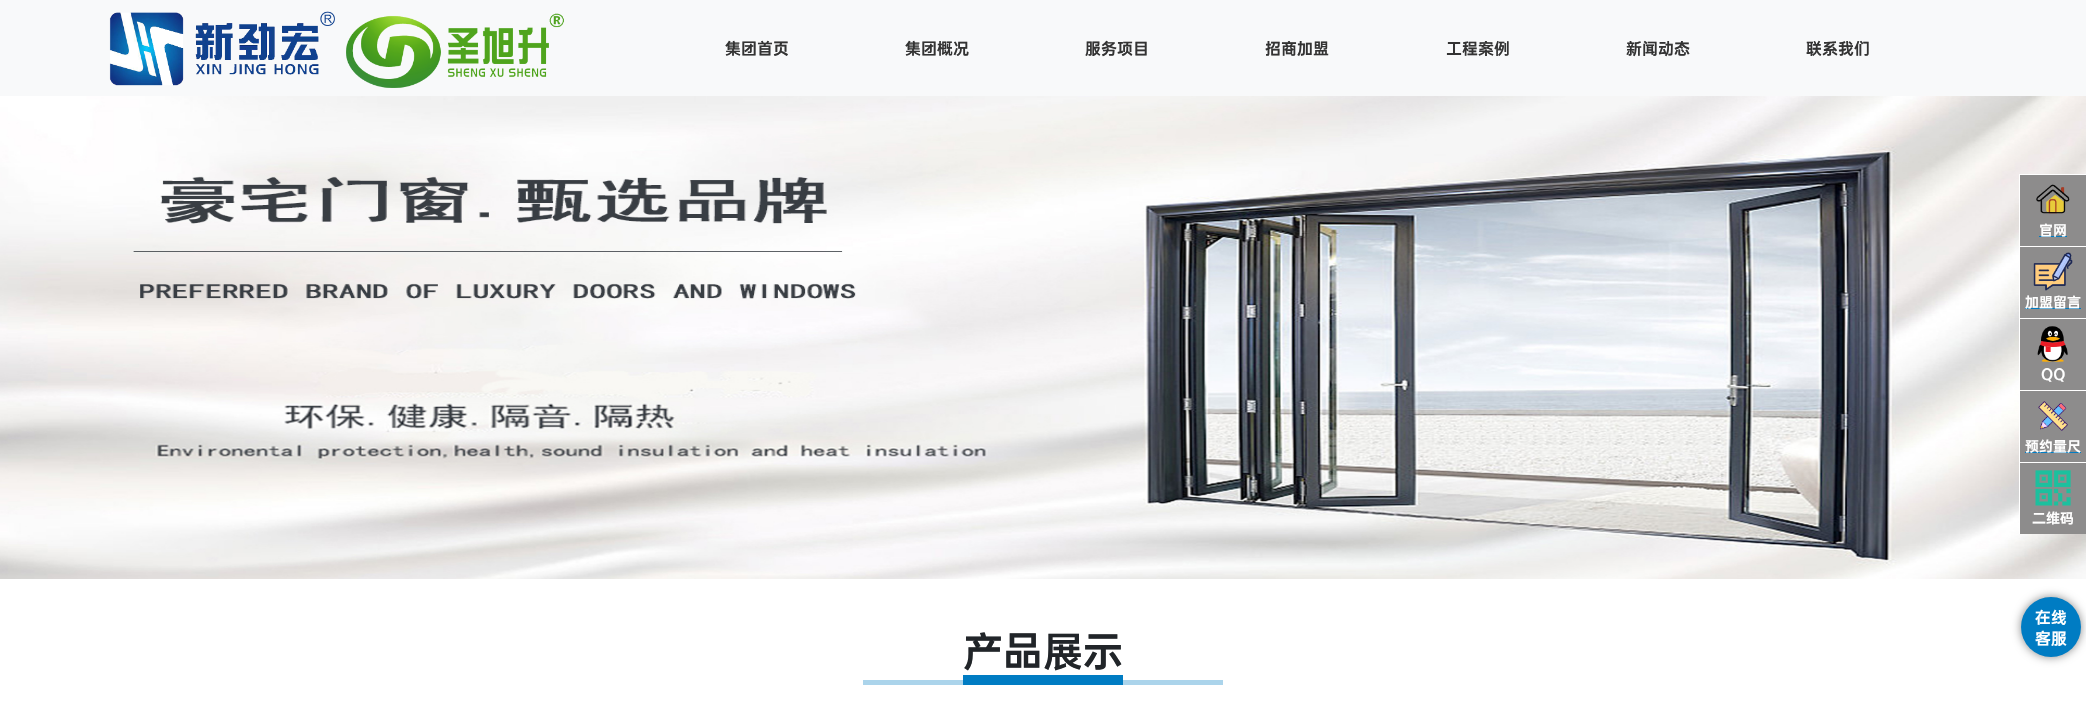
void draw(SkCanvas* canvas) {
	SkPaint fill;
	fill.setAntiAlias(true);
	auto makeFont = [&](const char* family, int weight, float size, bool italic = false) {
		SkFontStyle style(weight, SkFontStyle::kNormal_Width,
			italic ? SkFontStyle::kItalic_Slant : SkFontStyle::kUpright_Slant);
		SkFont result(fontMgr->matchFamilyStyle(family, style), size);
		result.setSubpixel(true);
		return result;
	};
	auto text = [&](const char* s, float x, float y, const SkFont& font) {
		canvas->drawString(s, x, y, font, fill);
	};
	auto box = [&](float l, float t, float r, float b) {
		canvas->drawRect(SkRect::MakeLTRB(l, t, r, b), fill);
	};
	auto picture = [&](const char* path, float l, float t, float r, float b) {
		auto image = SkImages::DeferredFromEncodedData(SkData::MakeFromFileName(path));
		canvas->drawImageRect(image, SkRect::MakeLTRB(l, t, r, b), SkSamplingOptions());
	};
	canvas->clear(0xFFFFFFFF);
	fill.setColor(0xFFABD4EB);
	box(863, 680, 1223, 685);
	fill.setColor(0xFFF8F9FA);
	box(0, 0, 2086, 96);
	picture("image0.png", 109, 11, 335, 86);
	picture("image1.png", 346, 13, 564, 88);
	picture("image2.png", 0, 96, 2086, 579);
	fill.setColor(0xFF8D8C8C);
	box(2020, 175, 2086, 246);
	fill.setColor(0xFFFFFFFF);
	box(2019, 174, 2086, 175);
	box(2019, 174, 2020, 246);
	picture("image3.png", 2036, 184, 2070, 214);
	fill.setColor(0xFF007CC3);
	box(2039, 236, 2067, 237);
	fill.setColor(0xFF8D8C8C);
	box(2020, 247, 2086, 318);
	fill.setColor(0xFFFFFFFF);
	box(2019, 246, 2086, 247);
	box(2019, 246, 2020, 318);
	picture("image4.png", 2033, 252, 2073, 291);
	fill.setColor(0xFF007CC3);
	box(2025, 308, 2081, 309);
	fill.setColor(0xFF8D8C8C);
	box(2020, 319, 2086, 390);
	fill.setColor(0xFFFFFFFF);
	box(2019, 318, 2086, 319);
	box(2019, 318, 2020, 381);
	picture("image5.png", 2037, 326, 2068, 362);
	fill.setColor(0xFF8D8C8C);
	box(2020, 391, 2086, 462);
	fill.setColor(0xFFFFFFFF);
	box(2028, 390, 2086, 391);
	box(2019, 390, 2020, 462);
	picture("image6.png", 2038, 401, 2068, 431);
	fill.setColor(0xFF007CC3);
	box(2025, 452, 2081, 453);
	fill.setColor(0xFF8D8C8C);
	box(2020, 463, 2086, 534);
	fill.setColor(0xFFFFFFFF);
	box(2019, 462, 2086, 463);
	box(2019, 462, 2020, 534);
	picture("image7.png", 2035, 470, 2071, 506);
	fill.setColor(0xFF888888);
	fill.setMaskFilter(SkMaskFilter::MakeBlur(kNormal_SkBlurStyle, 5));
	canvas->drawRoundRect(SkRect::MakeLTRB(2021, 597, 2081, 657), 30, 30, fill);
	fill.setMaskFilter(nullptr);
	fill.setColor(0xFF007CC3);
	canvas->drawCircle(2051, 627, 30, fill);
	box(963, 675, 1123, 685);
	auto font1 = makeFont("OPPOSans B", 400, 16);
	fill.setColor(0xFF333333);
	text("集团首页", 725, 54, font1);
	text("集团概况", 905, 54, font1);
	text("服务项目", 1085, 54, font1);
	text("招商加盟", 1265, 54, font1);
	text("工程案例", 1446, 54, font1);
	text("新闻动态", 1626, 54, font1);
	text("联系我们", 1806, 54, font1);
	auto font2 = makeFont("OPPOSans B", 400, 14);
	fill.setColor(0xFFFFFFFF);
	text("官网", 2039, 235, font2);
	text("加盟留言", 2025, 307, font2);
	text("QQ", 2041, 379, font2);
	text("预约量尺", 2025, 451, font2);
	text("二维码", 2032, 523, font2);
	text("在线", 2035, 623, font1);
	text("客服", 2035, 644, font1);
	auto font3 = makeFont("OPPOSans B", 400, 40);
	fill.setColor(0xFF212529);
	text("产品展示", 963, 665, font3);
}
